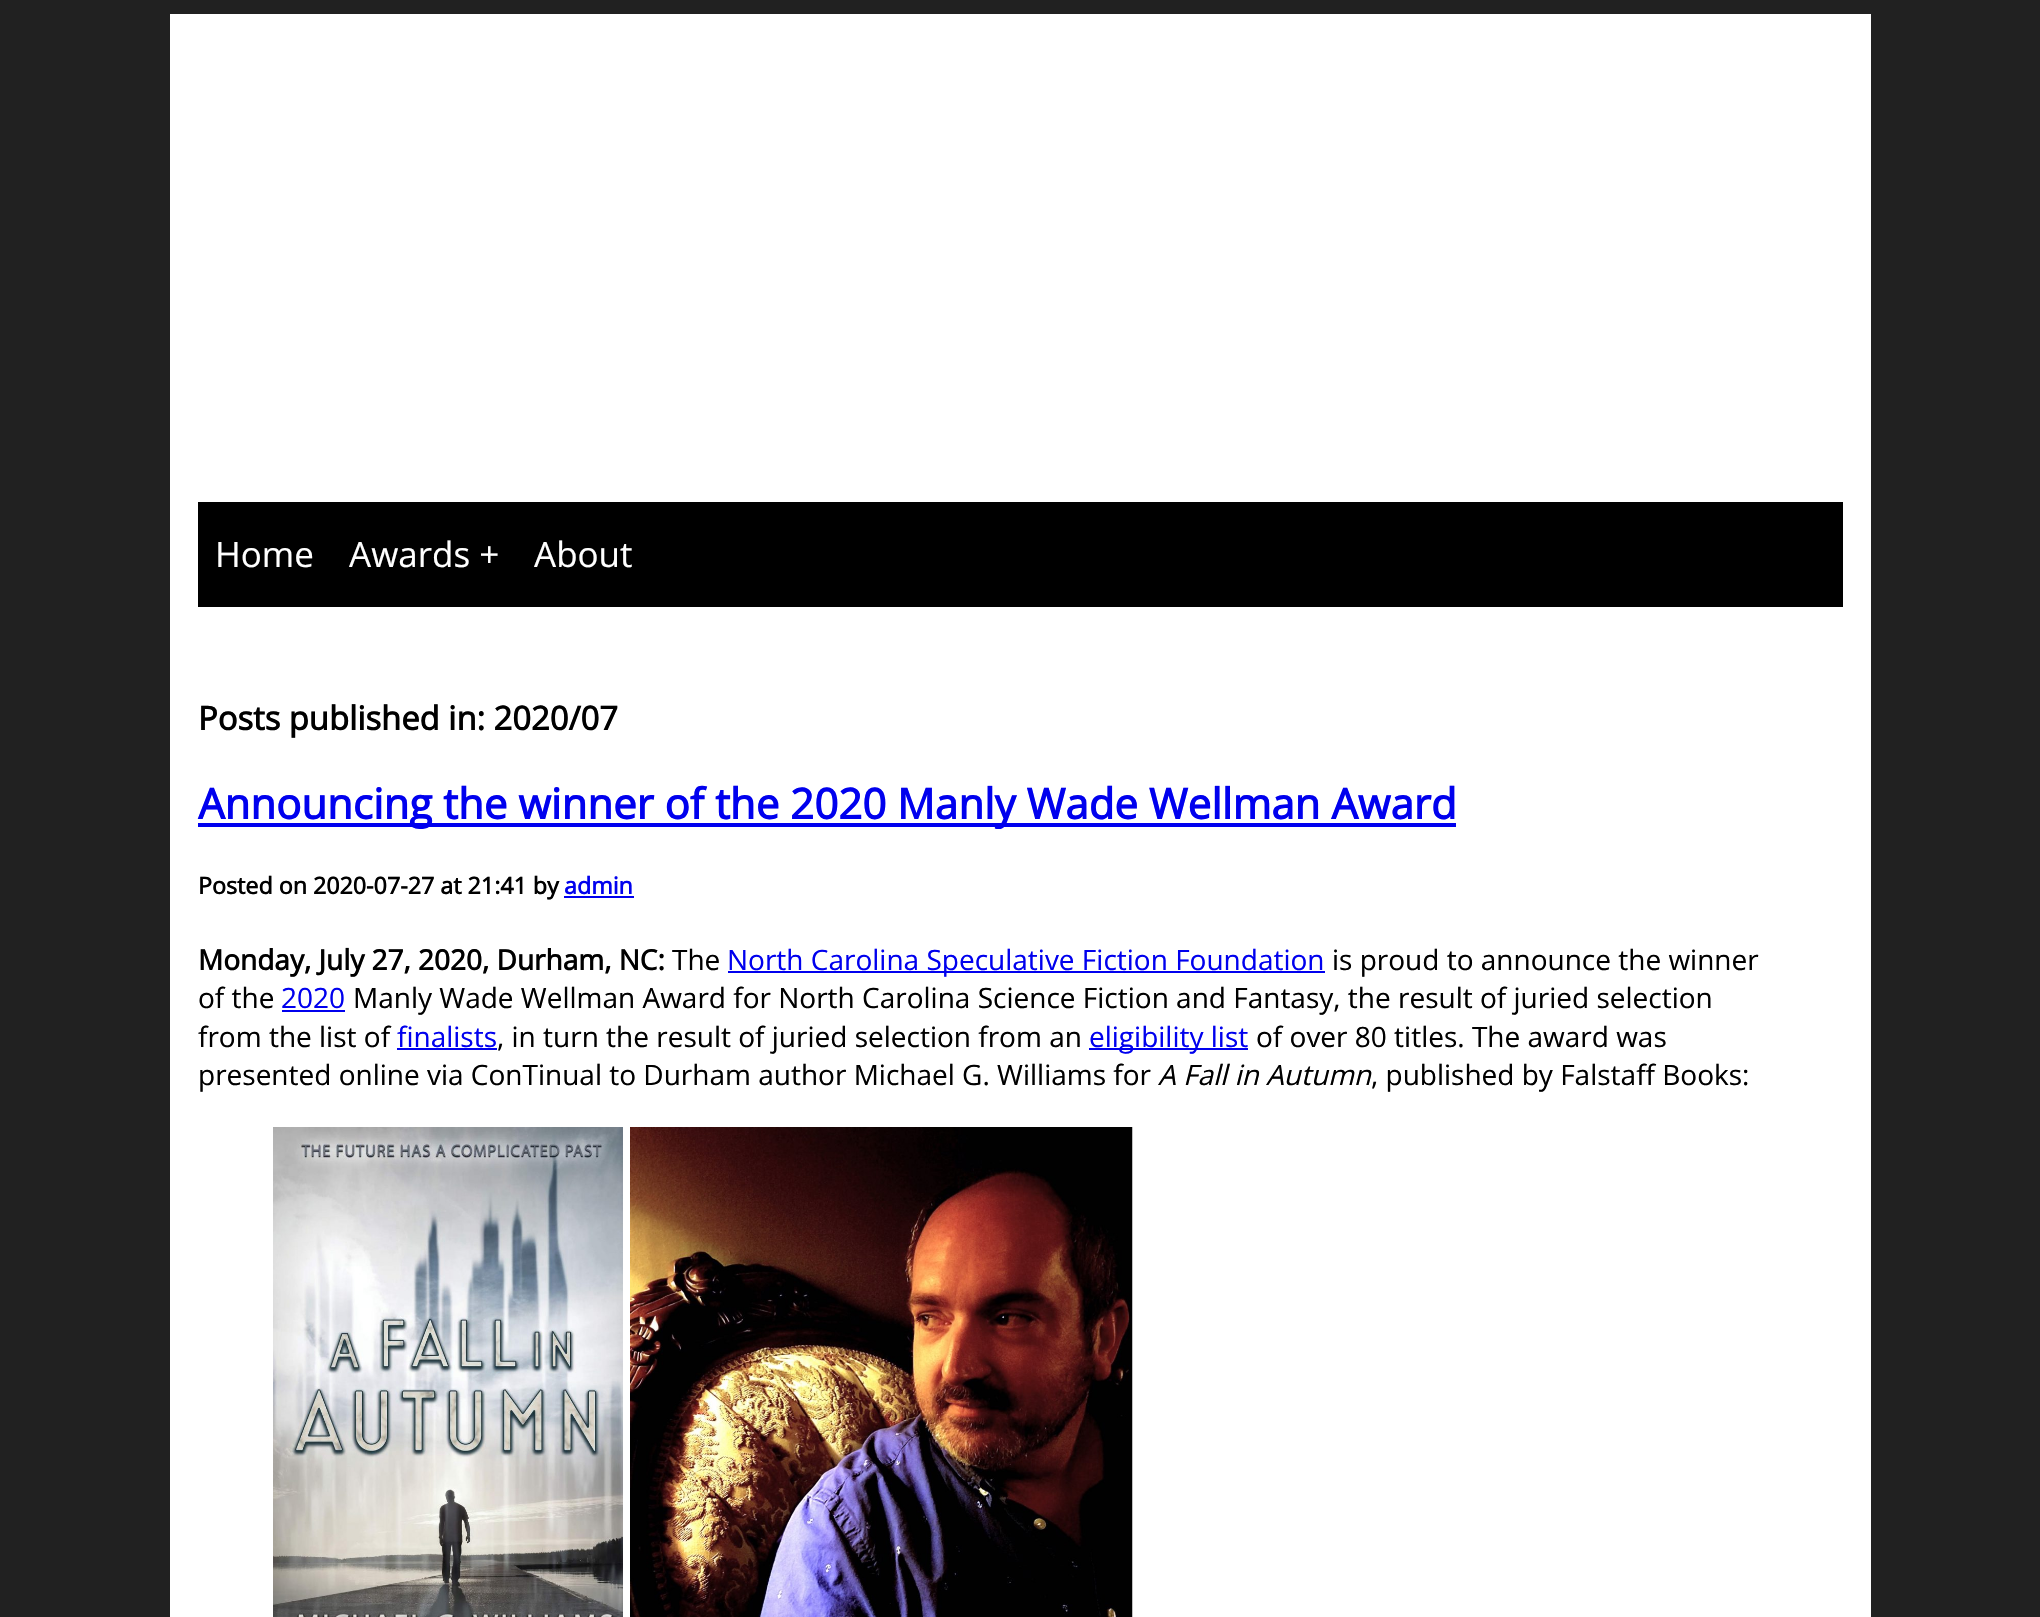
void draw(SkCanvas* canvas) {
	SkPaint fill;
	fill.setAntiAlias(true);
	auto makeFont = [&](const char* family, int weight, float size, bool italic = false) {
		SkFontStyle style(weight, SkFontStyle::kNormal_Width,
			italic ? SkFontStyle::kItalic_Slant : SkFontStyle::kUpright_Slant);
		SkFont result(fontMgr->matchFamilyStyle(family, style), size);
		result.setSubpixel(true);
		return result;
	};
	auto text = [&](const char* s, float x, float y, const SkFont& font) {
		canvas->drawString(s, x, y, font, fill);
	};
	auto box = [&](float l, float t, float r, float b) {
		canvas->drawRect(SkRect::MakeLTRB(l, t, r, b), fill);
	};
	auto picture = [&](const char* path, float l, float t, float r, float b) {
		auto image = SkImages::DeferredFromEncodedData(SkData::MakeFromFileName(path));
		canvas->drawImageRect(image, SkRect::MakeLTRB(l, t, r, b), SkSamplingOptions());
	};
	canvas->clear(0xFF212121);
	fill.setColor(0xFFFFFFFF);
	box(170, 14, 1871, 1617);
	fill.setColor(0xFF000000);
	box(198, 502, 1843, 607);
	fill.setColor(0xFF0000EE);
	box(198, 823, 1456, 827);
	box(564, 896, 634, 898);
	box(728, 971, 1325, 973);
	box(282, 1010, 345, 1012);
	box(397, 1048, 497, 1050);
	box(1089, 1048, 1248, 1050);
	picture("image0.png", 273, 1127, 623, 1617);
	picture("image1.png", 630, 1127, 1133, 1617);
	auto font1 = makeFont("Open Sans", 400, 35);
	fill.setColor(0xFFFFFFFF);
	text("Home", 215, 567, font1);
	text("Awards +", 349, 567, font1);
	text("About", 534, 567, font1);
	auto font2 = makeFont("Open Sans", 700, 32.75f);
	fill.setColor(0xFF000000);
	text("Posts published in: 2020/07", 198, 730, font2);
	auto font3 = makeFont("Open Sans", 700, 42);
	fill.setColor(0xFF0000EE);
	text("Announcing the winner of the 2020 Manly Wade Wellman Award", 198, 819, font3);
	auto font4 = makeFont("Open Sans", 700, 23.25f);
	fill.setColor(0xFF000000);
	text("Posted on 2020-07-27 at 21:41 by", 198, 894, font4);
	fill.setColor(0xFF0000EE);
	text("admin", 564, 894, font4);
	auto font5 = makeFont("Open Sans", 700, 28);
	fill.setColor(0xFF000000);
	text("Monday, July 27, 2020, Durham, NC:", 198, 970, font5);
	auto font6 = makeFont("Open Sans", 400, 28);
	text("The", 672, 970, font6);
	fill.setColor(0xFF0000EE);
	text("North Carolina Speculative Fiction Foundation", 727, 970, font6);
	fill.setColor(0xFF000000);
	text("is proud to announce the winner", 1332, 970, font6);
	text("of the", 198, 1008, font6);
	fill.setColor(0xFF0000EE);
	text("2020", 281, 1008, font6);
	fill.setColor(0xFF000000);
	text("Manly Wade Wellman Award for North Carolina Science Fiction and Fantasy, the result of juried selection", 353, 1008, font6);
	text("from the list of", 198, 1047, font6);
	fill.setColor(0xFF0000EE);
	text("finalists", 397, 1047, font6);
	fill.setColor(0xFF000000);
	text(", in turn the result of juried selection from an", 497, 1047, font6);
	fill.setColor(0xFF0000EE);
	text("eligibility list", 1089, 1047, font6);
	fill.setColor(0xFF000000);
	text("of over 80 titles. The award was", 1256, 1047, font6);
	text("presented online via ConTinual to Durham author Michael G. Williams for", 198, 1085, font6);
	auto font7 = makeFont("Open Sans", 400, 28, true);
	text("A Fall in Autumn", 1158, 1085, font7);
	text(", published by Falstaff Books:", 1371, 1085, font6);
}
